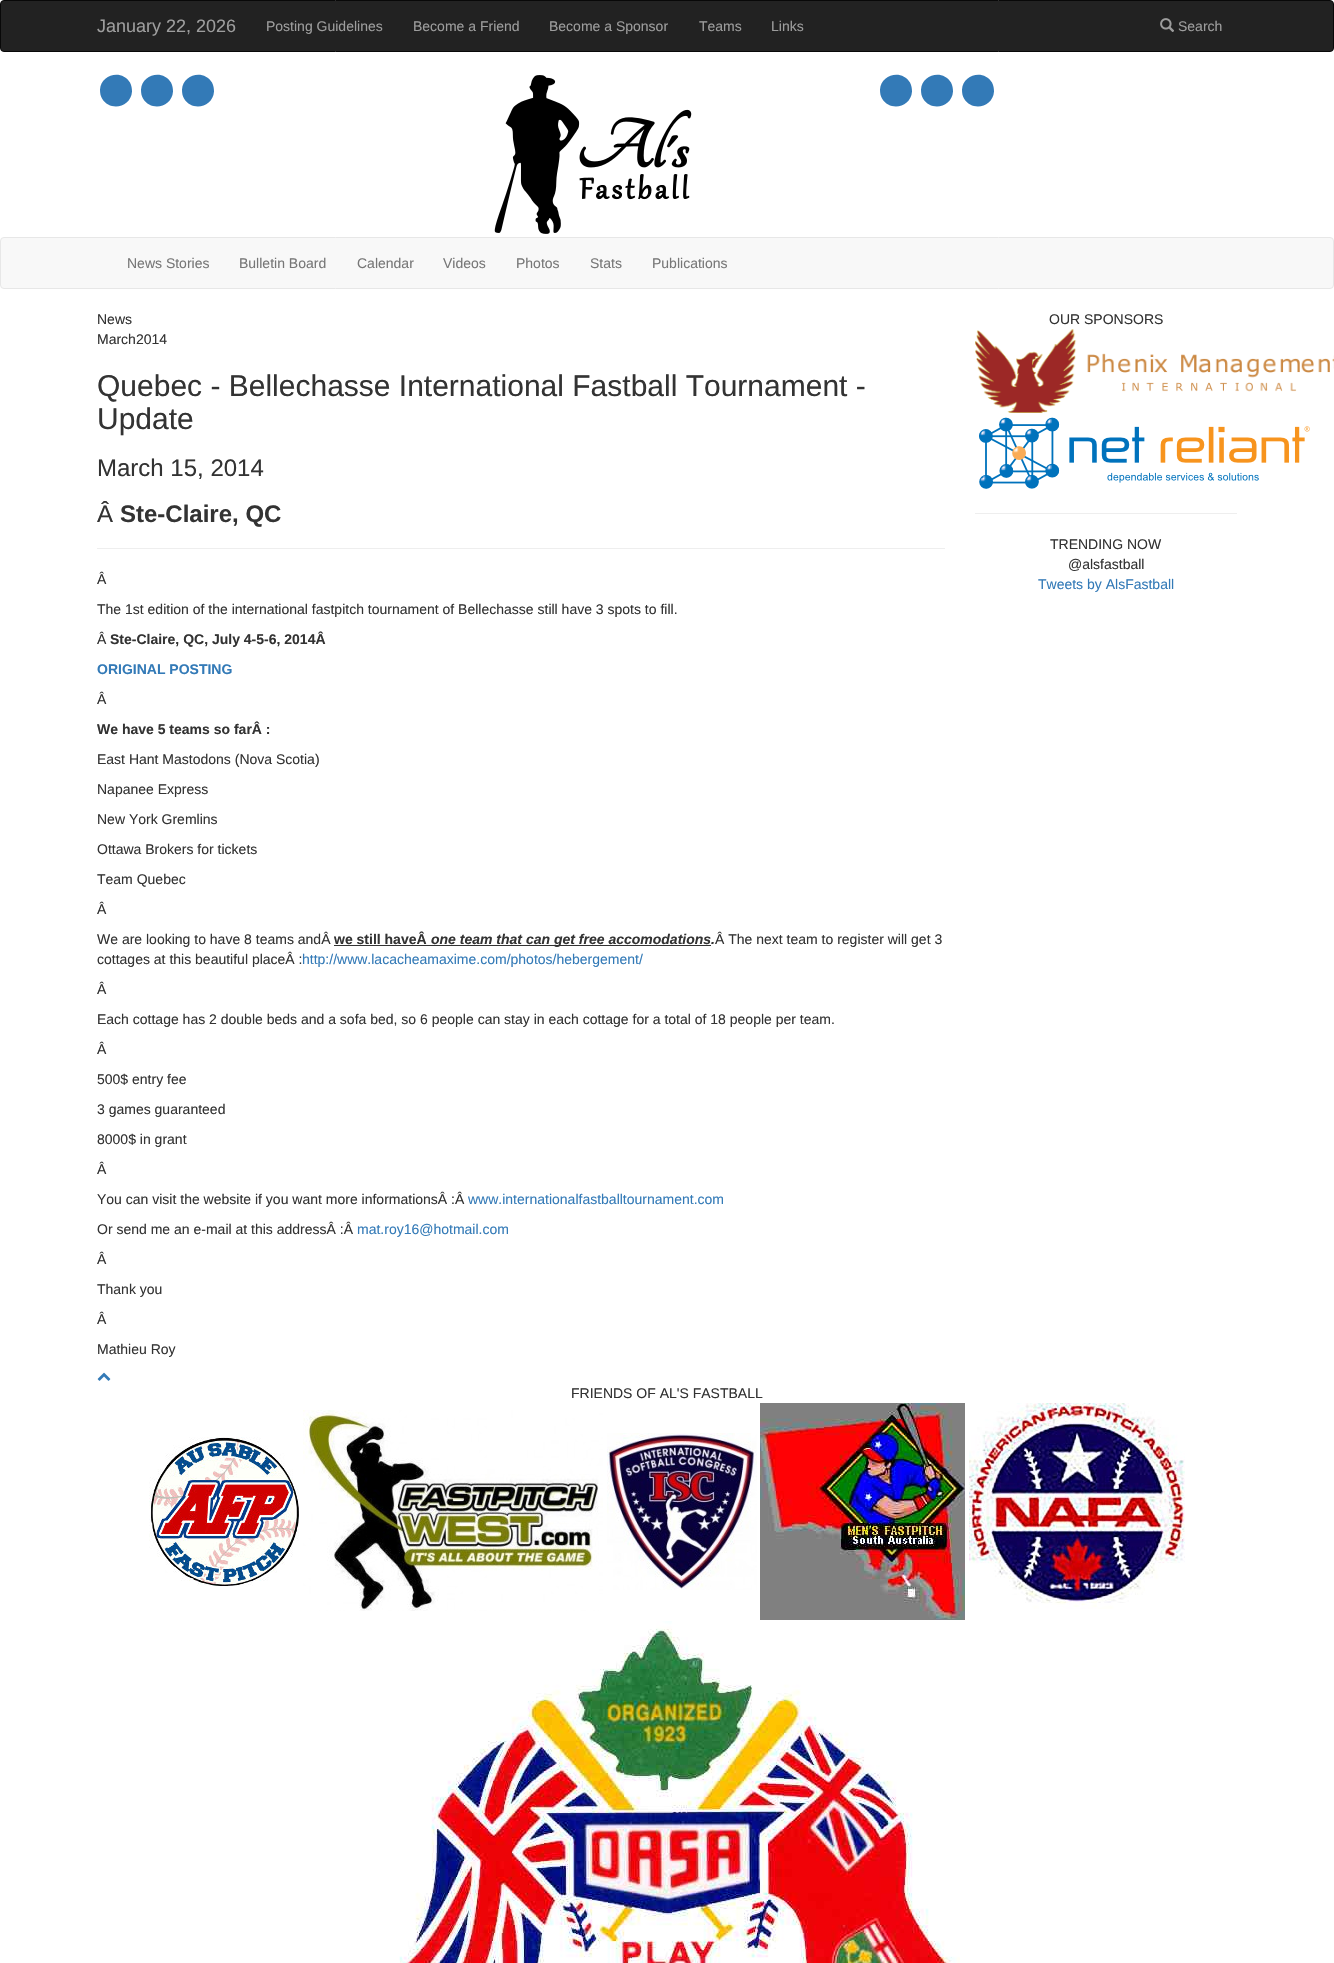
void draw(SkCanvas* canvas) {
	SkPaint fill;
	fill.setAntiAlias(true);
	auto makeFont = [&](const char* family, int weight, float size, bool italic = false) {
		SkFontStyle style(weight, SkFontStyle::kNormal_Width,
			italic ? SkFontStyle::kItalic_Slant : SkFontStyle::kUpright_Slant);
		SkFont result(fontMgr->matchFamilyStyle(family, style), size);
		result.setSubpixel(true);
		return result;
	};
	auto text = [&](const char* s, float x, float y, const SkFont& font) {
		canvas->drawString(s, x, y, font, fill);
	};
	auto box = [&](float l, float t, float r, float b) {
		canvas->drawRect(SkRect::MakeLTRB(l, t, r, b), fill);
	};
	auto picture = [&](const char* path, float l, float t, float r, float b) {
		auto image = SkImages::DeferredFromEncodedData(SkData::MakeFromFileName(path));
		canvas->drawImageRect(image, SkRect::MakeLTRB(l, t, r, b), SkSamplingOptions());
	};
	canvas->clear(0xFFFFFFFF);
	fill.setColor(0xFF222222);
	canvas->drawRoundRect(SkRect::MakeLTRB(0.5f, 0.5f, 1333.5f, 51.5f), 3.5f, 3.5f, fill);
	fill.setStyle(SkPaint::kStroke_Style);
	fill.setStrokeWidth(1);
	fill.setColor(0xFF080808);
	canvas->drawRoundRect(SkRect::MakeLTRB(0.5f, 0.5f, 1333.5f, 51.5f), 3.5f, 3.5f, fill);
	picture("image0.png", 1160, 18, 1174, 32);
	fill.setStyle(SkPaint::kFill_Style);
	fill.setColor(0xFF337AB7);
	canvas->drawPath(SkPathBuilder().moveTo(130, 82.5f).cubicTo(131.5f, 85.5f, 132, 88.5f, 132, 91.5f).cubicTo(131, 107.5f, 110, 112, 102, 98.5f).cubicTo(100.5f, 96, 100, 93, 100, 89.5f).cubicTo(101, 74, 122, 69, 130, 82.5f).close().detach(), fill);
	canvas->drawPath(SkPathBuilder().moveTo(171, 82.5f).cubicTo(172.5f, 85.5f, 173, 88.5f, 173, 91.5f).cubicTo(172, 107.5f, 151, 112, 143, 98.5f).cubicTo(141.5f, 96, 141, 93, 141, 89.5f).cubicTo(142, 74, 163, 69, 171, 82.5f).close().detach(), fill);
	canvas->drawPath(SkPathBuilder().moveTo(212, 82.5f).cubicTo(213.5f, 85.5f, 214, 88.5f, 214, 91.5f).cubicTo(213, 107.5f, 192, 112, 184, 98.5f).cubicTo(182.5f, 96, 182, 93, 182, 89.5f).cubicTo(183, 74, 204, 69, 212, 82.5f).close().detach(), fill);
	picture("image1.png", 494, 75, 692, 234);
	canvas->drawPath(SkPathBuilder().moveTo(910, 82.5f).cubicTo(911.5f, 85.5f, 912, 88.5f, 912, 91.5f).cubicTo(911, 107.5f, 890, 112, 882, 98.5f).cubicTo(880.5f, 96, 880, 93, 880, 89.5f).cubicTo(881, 74, 902, 69, 910, 82.5f).close().detach(), fill);
	canvas->drawPath(SkPathBuilder().moveTo(951, 82.5f).cubicTo(952.5f, 85.5f, 953, 88.5f, 953, 91.5f).cubicTo(952, 107.5f, 931, 112, 923, 98.5f).cubicTo(921.5f, 96, 921, 93, 921, 89.5f).cubicTo(922, 74, 943, 69, 951, 82.5f).close().detach(), fill);
	canvas->drawPath(SkPathBuilder().moveTo(992, 82.5f).cubicTo(993.5f, 85.5f, 994, 88.5f, 994, 91.5f).cubicTo(993, 107.5f, 972, 112, 964, 98.5f).cubicTo(962.5f, 96, 962, 93, 962, 89.5f).cubicTo(963, 74, 984, 69, 992, 82.5f).close().detach(), fill);
	fill.setColor(0xFFF8F8F8);
	canvas->drawRoundRect(SkRect::MakeLTRB(0.5f, 237.5f, 1333.5f, 288.5f), 3.5f, 3.5f, fill);
	fill.setStyle(SkPaint::kStroke_Style);
	fill.setColor(0xFFE7E7E7);
	canvas->drawRoundRect(SkRect::MakeLTRB(0.5f, 237.5f, 1333.5f, 288.5f), 3.5f, 3.5f, fill);
	fill.setStyle(SkPaint::kFill_Style);
	fill.setColor(0xFFEEEEEE);
	box(97, 548, 945, 549);
	fill.setColor(0xFF333333);
	box(334, 945, 711, 946);
	picture("image2.png", 97, 1372, 111, 1381);
	picture("image3.png", 975, 329, 1334, 413);
	picture("image4.png", 979, 417, 1310, 489);
	fill.setColor(0xFFEEEEEE);
	box(975, 513, 1237, 514);
	picture("image5.png", 149, 1437, 299, 1586);
	picture("image6.png", 303, 1410, 603, 1611);
	picture("image7.png", 607, 1433, 757, 1590);
	picture("image8.png", 760, 1403, 965, 1620);
	picture("image9.png", 969, 1403, 1185, 1609);
	picture("image10.png", 399, 1621, 960, 1963);
	auto font1 = makeFont("Liberation Sans", 400, 18);
	fill.setColor(0xFF9D9D9D);
	text("January 22, 2026", 97, 32, font1);
	auto font2 = makeFont("Liberation Sans", 400, 14);
	text("Posting Guidelines", 266, 31, font2);
	text("Become a Friend", 413, 31, font2);
	text("Become a Sponsor", 549, 31, font2);
	text("Teams", 699, 31, font2);
	text("Links", 771, 31, font2);
	text("Search", 1178, 31, font2);
	fill.setColor(0xFF777777);
	text("News Stories", 127, 268, font2);
	text("Bulletin Board", 239, 268, font2);
	text("Calendar", 357, 268, font2);
	text("Videos", 443, 268, font2);
	text("Photos", 516, 268, font2);
	text("Stats", 590, 268, font2);
	text("Publications", 652, 268, font2);
	fill.setColor(0xFF333333);
	text("News", 97, 324, font2);
	text("March2014", 97, 344, font2);
	auto font3 = makeFont("Liberation Sans", 400, 30);
	text("Quebec - Bellechasse International Fastball Tournament -", 97, 396, font3);
	text("Update", 97, 429, font3);
	auto font4 = makeFont("Liberation Sans", 400, 24);
	text("March 15, 2014", 97, 476, font4);
	text("Â", 97, 522, font4);
	auto font5 = makeFont("Liberation Sans", 700, 24);
	text("Ste-Claire, QC", 120, 522, font5);
	text("Â", 97, 584, font2);
	text("The 1st edition of the international fastpitch tournament of Bellechasse still have 3 spots to fill.", 97, 614, font2);
	text("Â", 97, 644, font2);
	auto font6 = makeFont("Liberation Sans", 700, 14);
	text("Ste-Claire, QC, July 4-5-6, 2014Â", 110, 644, font6);
	fill.setColor(0xFF337AB7);
	text("ORIGINAL POSTING", 97, 674, font6);
	fill.setColor(0xFF333333);
	text("Â", 97, 704, font2);
	text("We have 5 teams so farÂ :", 97, 734, font6);
	text("East Hant Mastodons (Nova Scotia)", 97, 764, font2);
	text("Napanee Express", 97, 794, font2);
	text("New York Gremlins", 97, 824, font2);
	text("Ottawa Brokers for tickets", 97, 854, font2);
	text("Team Quebec", 97, 884, font2);
	text("Â", 97, 914, font2);
	text("We are looking to have 8 teams andÂ", 97, 944, font2);
	text("we still haveÂ", 334, 944, font6);
	auto font7 = makeFont("Liberation Sans", 700, 14, true);
	text("one team that can get free accomodations.", 431, 944, font7);
	text("Â The next team to register will get 3", 715, 944, font2);
	text("cottages at this beautiful placeÂ :", 97, 964, font2);
	fill.setColor(0xFF337AB7);
	text("http://www.lacacheamaxime.com/photos/hebergement/", 302, 964, font2);
	fill.setColor(0xFF333333);
	text("Â", 97, 994, font2);
	text("Each cottage has 2 double beds and a sofa bed, so 6 people can stay in each cottage for a total of 18 people per team.", 97, 1024, font2);
	text("Â", 97, 1054, font2);
	text("500$ entry fee", 97, 1084, font2);
	text("3 games guaranteed", 97, 1114, font2);
	text("8000$ in grant", 97, 1144, font2);
	text("Â", 97, 1174, font2);
	text("You can visit the website if you want more informationsÂ :Â", 97, 1204, font2);
	fill.setColor(0xFF337AB7);
	text("www.internationalfastballtournament.com", 468, 1204, font2);
	fill.setColor(0xFF333333);
	text("Or send me an e-mail at this addressÂ :Â", 97, 1234, font2);
	fill.setColor(0xFF337AB7);
	text("mat.roy16@hotmail.com", 357, 1234, font2);
	fill.setColor(0xFF333333);
	text("Â", 97, 1264, font2);
	text("Thank you", 97, 1294, font2);
	text("Â", 97, 1324, font2);
	text("Mathieu Roy", 97, 1354, font2);
	text("OUR SPONSORS", 1049, 324, font2);
	text("TRENDING NOW", 1050, 549, font2);
	text("@alsfastball", 1068, 569, font2);
	fill.setColor(0xFF337AB7);
	text("Tweets by AlsFastball", 1038, 589, font2);
	fill.setColor(0xFF333333);
	text("FRIENDS OF AL'S FASTBALL", 571, 1398, font2);
}
